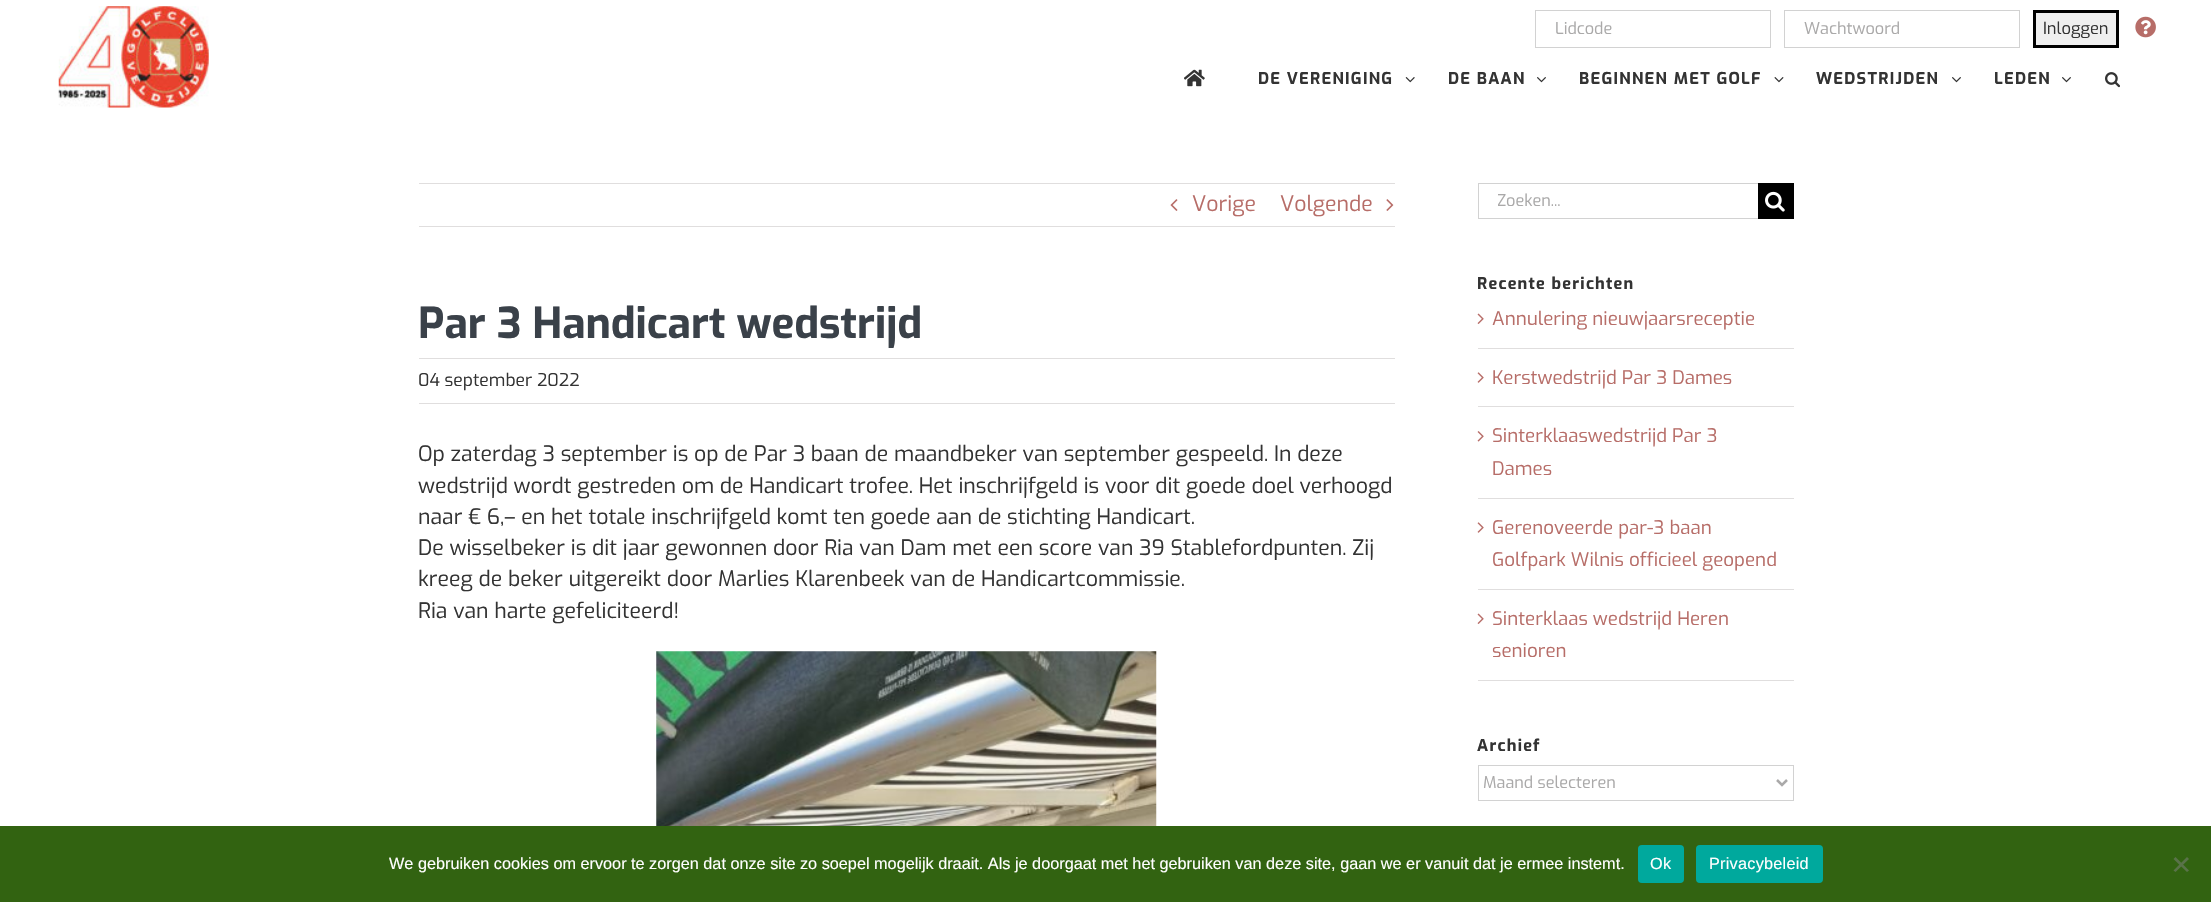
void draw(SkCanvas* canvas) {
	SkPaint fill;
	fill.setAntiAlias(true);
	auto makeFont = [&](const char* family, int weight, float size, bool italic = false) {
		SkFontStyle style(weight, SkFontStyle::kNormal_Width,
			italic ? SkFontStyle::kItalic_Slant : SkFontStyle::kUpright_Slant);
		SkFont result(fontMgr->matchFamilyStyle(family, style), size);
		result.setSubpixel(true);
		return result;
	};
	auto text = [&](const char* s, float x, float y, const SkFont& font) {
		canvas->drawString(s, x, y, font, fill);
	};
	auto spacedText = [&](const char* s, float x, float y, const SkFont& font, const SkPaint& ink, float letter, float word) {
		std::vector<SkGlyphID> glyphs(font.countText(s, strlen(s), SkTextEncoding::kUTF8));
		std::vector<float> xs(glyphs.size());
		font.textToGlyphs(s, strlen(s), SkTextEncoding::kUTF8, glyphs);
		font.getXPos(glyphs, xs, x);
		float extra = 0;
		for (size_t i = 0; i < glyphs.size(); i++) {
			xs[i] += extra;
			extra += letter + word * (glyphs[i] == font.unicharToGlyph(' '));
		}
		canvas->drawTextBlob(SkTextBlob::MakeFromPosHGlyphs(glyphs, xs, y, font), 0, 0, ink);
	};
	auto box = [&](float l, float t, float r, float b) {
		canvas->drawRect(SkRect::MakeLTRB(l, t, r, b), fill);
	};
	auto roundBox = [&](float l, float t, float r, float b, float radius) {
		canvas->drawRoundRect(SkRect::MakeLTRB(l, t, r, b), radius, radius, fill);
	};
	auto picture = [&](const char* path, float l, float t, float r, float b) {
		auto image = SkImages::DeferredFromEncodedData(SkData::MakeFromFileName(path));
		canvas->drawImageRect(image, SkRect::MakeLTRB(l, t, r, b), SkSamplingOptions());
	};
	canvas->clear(0xFFFFFFFF);
	fill.setStyle(SkPaint::kStroke_Style);
	fill.setStrokeWidth(1);
	fill.setColor(0xFFD2D2D2);
	canvas->drawRect(SkRect::MakeLTRB(1535.5f, 10.5f, 1770.5f, 47.5f), fill);
	canvas->drawRect(SkRect::MakeLTRB(1784.5f, 10.5f, 2019.5f, 47.5f), fill);
	fill.setStyle(SkPaint::kFill_Style);
	fill.setColor(0xFFEFEFEF);
	canvas->drawRect(SkRect::MakeLTRB(2034.5f, 11.5f, 2117.5f, 46.5f), fill);
	fill.setStyle(SkPaint::kStroke_Style);
	fill.setStrokeWidth(3);
	fill.setColor(0xFF000000);
	canvas->drawRect(SkRect::MakeLTRB(2034.5f, 11.5f, 2117.5f, 46.5f), fill);
	picture("image0.png", 2135, 16, 2156, 38);
	picture("image1.png", 58, 6, 209, 108);
	picture("image2.png", 1184, 69, 1205, 87);
	picture("image3.png", 1405, 77, 1415, 83);
	picture("image4.png", 1537, 77, 1546, 83);
	picture("image5.png", 1774, 77, 1784, 83);
	picture("image4.png", 1952, 77, 1961, 83);
	picture("image4.png", 2062, 77, 2071, 83);
	picture("image6.png", 2105, 72, 2120, 88);
	fill.setStyle(SkPaint::kFill_Style);
	fill.setColor(0xFFE0DEDE);
	box(419, 183, 1395, 184);
	box(419, 226, 1395, 227);
	picture("image7.png", 1170, 199, 1178, 211);
	picture("image8.png", 1386, 199, 1394, 211);
	box(419, 358, 1395, 359);
	box(419, 403, 1395, 404);
	picture("image9.png", 656, 651, 1157, 826);
	fill.setColor(0xFFD2D2D2);
	box(1478, 183, 1758, 184);
	box(1478, 218, 1758, 219);
	box(1478, 183, 1479, 219);
	fill.setColor(0xFF000000);
	box(1758, 183, 1794, 219);
	picture("image10.png", 1765, 191, 1785, 212);
	fill.setColor(0xFFE0DEDE);
	box(1478, 348, 1794, 349);
	picture("image11.png", 1477, 313, 1484, 324);
	box(1478, 406, 1794, 407);
	picture("image12.png", 1477, 372, 1484, 383);
	box(1478, 498, 1794, 499);
	picture("image13.png", 1477, 431, 1484, 442);
	box(1478, 589, 1794, 590);
	picture("image12.png", 1477, 522, 1484, 533);
	box(1478, 680, 1794, 681);
	picture("image11.png", 1477, 613, 1484, 624);
	fill.setStyle(SkPaint::kStroke_Style);
	fill.setStrokeWidth(1);
	fill.setColor(0xFFD2D2D2);
	canvas->drawRect(SkRect::MakeLTRB(1478.5f, 765.5f, 1793.5f, 800.5f), fill);
	fill.setStrokeWidth(2.5f);
	fill.setColor(0xFFAAA9A9);
	canvas->drawPath(SkPathBuilder().moveTo(1777, 780).lineTo(1782, 785).lineTo(1787, 780).detach(), fill);
	fill.setStyle(SkPaint::kFill_Style);
	fill.setColor(0xFF326311);
	box(0, 826, 2211, 902);
	fill.setColor(0xFF00A99D);
	roundBox(1638, 845, 1684, 883, 4);
	roundBox(1696, 845, 1823, 883, 4);
	fill.setColor(0xFF597249);
	canvas->drawPath(SkPathBuilder().moveTo(2187, 857).lineTo(2189, 859).lineTo(2175.5f, 872).lineTo(2173.5f, 870.5f).close().detach(), fill);
	canvas->drawPath(SkPathBuilder().moveTo(2173.5f, 859).lineTo(2175.5f, 857).lineTo(2189, 870.5f).lineTo(2187, 872).close().detach(), fill);
	auto font1 = makeFont("Exo", 400, 16.25f);
	fill.setColor(0xFFAAA9A9);
	text("Lidcode", 1555, 34, font1);
	text("Wachtwoord", 1804, 34, font1);
	auto font2 = makeFont("Exo", 400, 16.5f);
	fill.setColor(0xFF333333);
	text("Inloggen", 2043, 34, font2);
	auto font3 = makeFont("Exo", 700, 16.25f);
	spacedText("DE VERENIGING", 1258, 84, font3, fill, 1.25f, 0);
	spacedText("DE BAAN", 1448, 84, font3, fill, 1.25f, 0);
	spacedText("BEGINNEN MET GOLF", 1579, 84, font3, fill, 1.25f, 0);
	spacedText("WEDSTRIJDEN", 1816, 84, font3, fill, 1.25f, 0);
	spacedText("LEDEN", 1994, 84, font3, fill, 1.25f, 0);
	auto font4 = makeFont("Exo", 400, 21.25f);
	fill.setColor(0xFFB76D68);
	text("Vorige", 1192, 211, font4);
	text("Volgende", 1280, 211, font4);
	auto font5 = makeFont("Exo", 700, 42.5f);
	fill.setColor(0xFF3A4149);
	text("Par 3 Handicart wedstrijd", 418, 338, font5);
	auto font6 = makeFont("Exo", 400, 17.5f);
	fill.setColor(0xFF333333);
	text("04 september 2022", 418, 386, font6);
	text("Op zaterdag 3 september is op de Par 3 baan de maandbeker van september gespeeld. In deze", 418, 461, font4);
	text("wedstrijd wordt gestreden om de Handicart trofee. Het inschrijfgeld is voor dit goede doel verhoogd", 418, 493, font4);
	text("naar € 6,– en het totale inschrijfgeld komt ten goede aan de stichting Handicart.", 418, 524, font4);
	text("De wisselbeker is dit jaar gewonnen door Ria van Dam met een score van 39 Stablefordpunten. Zij", 418, 555, font4);
	text("kreeg de beker uitgereikt door Marlies Klarenbeek van de Handicartcommissie.", 418, 586, font4);
	text("Ria van harte gefeliciteerd!", 418, 618, font4);
	canvas->save();
	canvas->clipRect(SkRect::MakeLTRB(1498, 190, 1723, 211));
	fill.setColor(0xFFAAA9A9);
	text("Zoeken...", 1497, 206, font1);
	canvas->restore();
	fill.setColor(0xFF333333);
	spacedText("Recente berichten", 1477, 289, font3, fill, 1.25f, 0);
	auto font7 = makeFont("Exo", 400, 18.75f);
	fill.setColor(0xFFB76D68);
	text("Annulering nieuwjaarsreceptie", 1492, 325, font7);
	text("Kerstwedstrijd Par 3 Dames", 1492, 384, font7);
	text("Sinterklaaswedstrijd Par 3", 1492, 442, font7);
	text("Dames", 1492, 475, font7);
	text("Gerenoveerde par-3 baan", 1492, 534, font7);
	text("Golfpark Wilnis officieel geopend", 1492, 566, font7);
	text("Sinterklaas wedstrijd Heren", 1492, 625, font7);
	text("senioren", 1492, 657, font7);
	fill.setColor(0xFF333333);
	spacedText("Archief", 1477, 751, font3, fill, 1.25f, 0);
	fill.setColor(0xFFAAA9A9);
	text("Maand selecteren", 1483, 788, font1);
	auto font8 = makeFont("Liberation Sans", 400, 16.25f);
	fill.setColor(0xFFFFFFFF);
	text("We gebruiken cookies om ervoor te zorgen dat onze site zo soepel mogelijk draait. Als je doorgaat met het gebruiken van deze site, gaan we er vanuit dat je ermee instemt.", 389, 869, font8);
	spacedText("Ok", 1650, 869, font8, fill, 0.25f, 0);
	spacedText("Privacybeleid", 1709, 869, font8, fill, 0.25f, 0);
}
